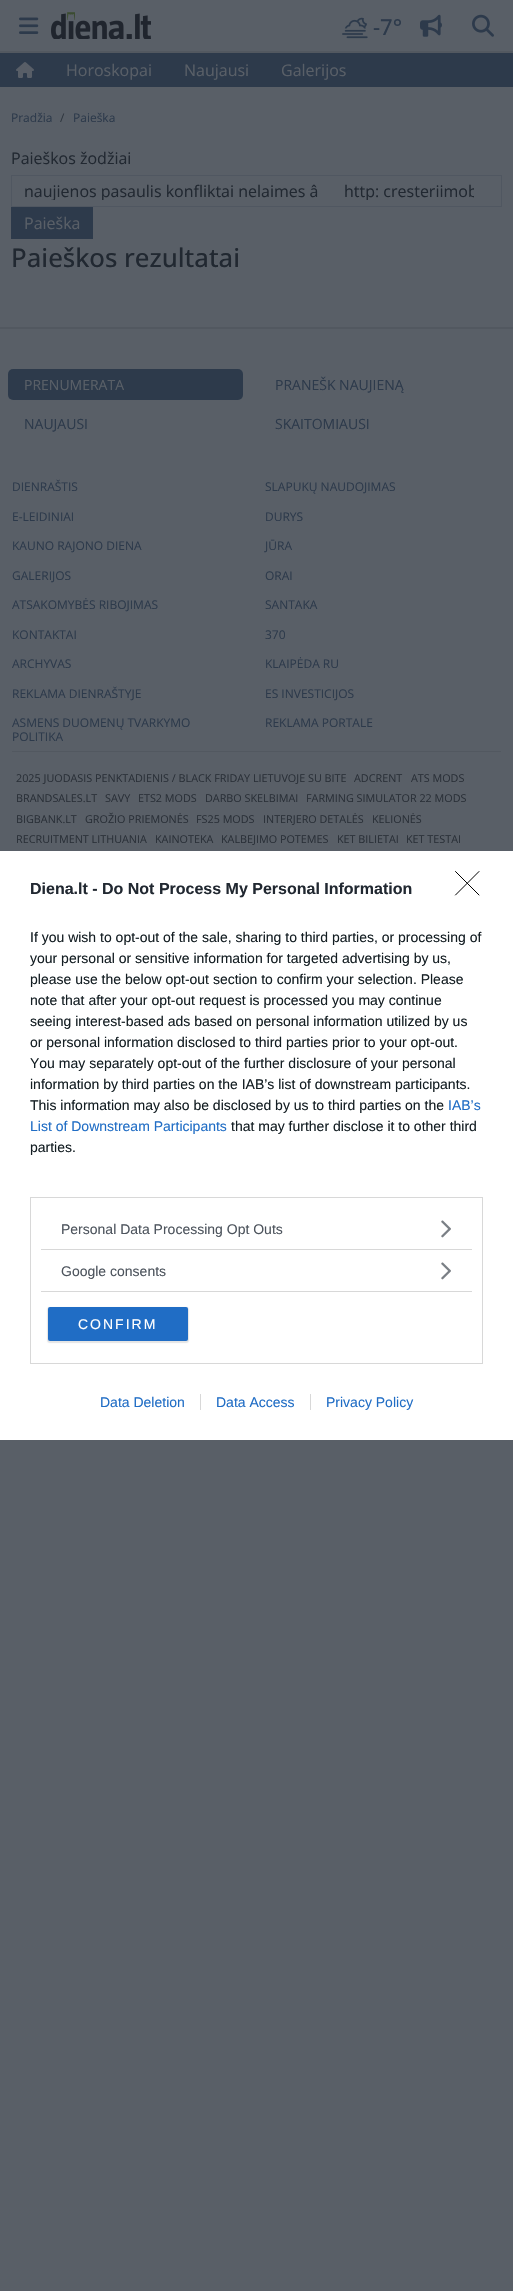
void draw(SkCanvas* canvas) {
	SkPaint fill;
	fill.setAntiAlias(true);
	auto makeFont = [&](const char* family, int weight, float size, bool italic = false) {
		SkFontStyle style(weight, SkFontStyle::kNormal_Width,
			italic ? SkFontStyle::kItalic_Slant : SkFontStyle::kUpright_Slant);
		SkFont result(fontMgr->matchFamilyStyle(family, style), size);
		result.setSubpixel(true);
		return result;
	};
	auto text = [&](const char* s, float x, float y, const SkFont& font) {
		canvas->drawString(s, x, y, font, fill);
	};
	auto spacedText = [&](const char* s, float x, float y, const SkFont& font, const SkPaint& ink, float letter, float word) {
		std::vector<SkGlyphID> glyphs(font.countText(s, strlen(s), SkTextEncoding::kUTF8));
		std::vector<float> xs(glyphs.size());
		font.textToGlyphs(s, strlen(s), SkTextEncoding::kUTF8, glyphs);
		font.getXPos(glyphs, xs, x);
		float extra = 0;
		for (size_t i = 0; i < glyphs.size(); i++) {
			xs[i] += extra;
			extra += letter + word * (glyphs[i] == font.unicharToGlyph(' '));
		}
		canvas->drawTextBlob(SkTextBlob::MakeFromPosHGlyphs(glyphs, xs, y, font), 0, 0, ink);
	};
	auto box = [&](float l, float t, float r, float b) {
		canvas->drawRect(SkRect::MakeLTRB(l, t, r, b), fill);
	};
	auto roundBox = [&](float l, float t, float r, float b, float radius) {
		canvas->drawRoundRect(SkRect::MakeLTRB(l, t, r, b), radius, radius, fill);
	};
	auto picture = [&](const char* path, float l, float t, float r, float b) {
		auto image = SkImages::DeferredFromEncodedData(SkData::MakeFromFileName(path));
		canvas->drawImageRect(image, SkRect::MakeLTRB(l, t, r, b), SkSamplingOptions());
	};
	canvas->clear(0xFF595F67);
	fill.setColor(0xFF525860);
	box(0, 51, 513, 53);
	picture("image0.png", 19, 17, 39, 34);
	picture("image1.png", 51, 12, 151, 39);
	picture("image2.png", 342, 17, 368, 39);
	picture("image3.png", 420, 14, 442, 37);
	picture("image4.png", 472, 14, 494, 37);
	fill.setColor(0xFF2D3A4B);
	box(0, 53, 513, 87);
	picture("image5.png", 16, 62, 34, 78);
	fill.setStyle(SkPaint::kStroke_Style);
	fill.setStrokeWidth(1);
	fill.setColor(0xFF505761);
	canvas->drawRect(SkRect::MakeLTRB(11.5f, 175.5f, 501.5f, 206.5f), fill);
	fill.setStyle(SkPaint::kFill_Style);
	fill.setColor(0xFF2D3A4B);
	box(11, 207, 93, 239);
	fill.setColor(0xFF525860);
	box(0, 327, 513, 329);
	fill.setColor(0xFF2D3A4B);
	roundBox(8, 369, 243, 400, 5);
	fill.setColor(0xFF525860);
	box(12, 751, 501, 752);
	fill.setColor(0xFFFFFFFF);
	box(0, 851, 513, 1440);
	fill.setStyle(SkPaint::kStroke_Style);
	fill.setStrokeCap(SkPaint::kRound_Cap);
	fill.setStrokeJoin(SkPaint::kRound_Join);
	fill.setColor(0xFF000000);
	canvas->drawPath(SkPathBuilder().moveTo(455.5f, 871.5f).lineTo(479, 895).moveTo(479, 871.5f).lineTo(455.5f, 895).detach(), fill);
	fill.setStrokeCap(SkPaint::kButt_Cap);
	fill.setStrokeJoin(SkPaint::kMiter_Join);
	fill.setColor(0xFFD8D8D8);
	canvas->drawRect(SkRect::MakeLTRB(30.5f, 1197.5f, 482.5f, 1363.5f), fill);
	fill.setStyle(SkPaint::kFill_Style);
	box(41, 1249, 472, 1250);
	picture("image6.png", 441, 1220, 451, 1238);
	box(41, 1291, 472, 1292);
	picture("image6.png", 441, 1262, 451, 1280);
	fill.setColor(0x1A000000);
	fill.setMaskFilter(SkMaskFilter::MakeBlur(kNormal_SkBlurStyle, 0.5f));
	canvas->drawRoundRect(SkRect::MakeLTRB(47, 1307, 189, 1343), 3, 3, fill);
	fill.setMaskFilter(nullptr);
	fill.setColor(0xFF206DC5);
	roundBox(48, 1307, 188, 1341, 2);
	fill.setColor(0xFFD8D8D8);
	box(200, 1394, 201, 1410);
	box(310, 1394, 311, 1410);
	auto font1 = makeFont("Open Sans", 500, 22);
	fill.setColor(0xFF2D3A4B);
	text("-7°", 373, 35, font1);
	auto font2 = makeFont("Open Sans", 400, 16);
	fill.setColor(0xFF595F67);
	text("Horoskopai", 66, 76, font2);
	text("Naujausi", 184, 76, font2);
	text("Galerijos", 281, 76, font2);
	auto font3 = makeFont("Open Sans", 400, 12);
	fill.setColor(0xFF2D3A4B);
	text("Pradžia", 11, 122, font3);
	fill.setColor(0xFF2F363F);
	text("/", 60, 122, font3);
	fill.setColor(0xFF2D3A4B);
	text("Paieška", 73, 122, font3);
	fill.setColor(0xFF212831);
	text("Paieškos žodžiai", 11, 164, font2);
	canvas->save();
	canvas->clipRect(SkRect::MakeLTRB(24, 182, 474, 200));
	text("naujienos pasaulis konfliktai nelaimes â", 24, 197, font2);
	text("http: cresteriimob", 344, 197, font2);
	canvas->restore();
	fill.setColor(0xFF595F67);
	text("Paieška", 24, 229, font2);
	auto font4 = makeFont("Open Sans", 500, 25.75f);
	fill.setColor(0xFF212831);
	text("Paieškos rezultatai", 11, 267, font4);
	auto font5 = makeFont("Open Sans", 400, 14);
	fill.setColor(0xFF595F67);
	text("PRENUMERATA", 24, 390, font5);
	fill.setColor(0xFF2D3A4B);
	text("PRANEŠK NAUJIENĄ", 275, 390, font5);
	text("NAUJAUSI", 24, 429, font5);
	text("SKAITOMIAUSI", 275, 429, font5);
	text("DIENRAŠTIS", 12, 491, font3);
	text("SLAPUKŲ NAUDOJIMAS", 265, 491, font3);
	text("E-LEIDINIAI", 12, 521, font3);
	text("DURYS", 265, 521, font3);
	text("KAUNO RAJONO DIENA", 12, 550, font3);
	text("JŪRA", 265, 550, font3);
	text("GALERIJOS", 12, 580, font3);
	text("ORAI", 265, 580, font3);
	text("ATSAKOMYBĖS RIBOJIMAS", 12, 609, font3);
	text("SANTAKA", 265, 609, font3);
	text("KONTAKTAI", 12, 639, font3);
	text("370", 265, 639, font3);
	text("ARCHYVAS", 12, 668, font3);
	text("KLAIPĖDA RU", 265, 668, font3);
	text("REKLAMA DIENRAŠTYJE", 12, 698, font3);
	text("ES INVESTICIJOS", 265, 698, font3);
	text("ASMENS DUOMENŲ TVARKYMO", 12, 727, font3);
	text("POLITIKA", 12, 741, font3);
	text("REKLAMA PORTALE", 265, 727, font3);
	auto font6 = makeFont("Open Sans", 400, 10.8f);
	fill.setColor(0xFF2A3038);
	text("2025 JUODASIS PENKTADIENIS / BLACK FRIDAY LIETUVOJE SU BITE", 16, 782, font6);
	text("ADCRENT", 354, 782, font6);
	text("ATS MODS", 411, 782, font6);
	text("BRANDSALES.LT", 16, 802, font6);
	text("SAVY", 105, 802, font6);
	text("ETS2 MODS", 138, 802, font6);
	text("DARBO SKELBIMAI", 205, 802, font6);
	text("FARMING SIMULATOR 22 MODS", 306, 802, font6);
	text("BIGBANK.LT", 16, 823, font6);
	text("GROŽIO PRIEMONĖS", 85, 823, font6);
	text("FS25 MODS", 196, 823, font6);
	text("INTERJERO DETALĖS", 263, 823, font6);
	text("KELIONĖS", 372, 823, font6);
	text("RECRUITMENT LITHUANIA", 16, 843, font6);
	text("KAINOTEKA", 155, 843, font6);
	text("KALBEJIMO POTEMES", 221, 843, font6);
	text("KET BILIETAI", 337, 843, font6);
	text("KET TESTAI", 406, 843, font6);
	auto font7 = makeFont("Liberation Sans", 700, 16);
	fill.setColor(0xFF212831);
	text("Diena.lt - Do Not Process My Personal Information", 30, 894, font7);
	auto font8 = makeFont("Liberation Sans", 400, 14);
	fill.setColor(0xFF141E23);
	text("If you wish to opt-out of the sale, sharing to third parties, or processing of", 30, 942, font8);
	text("your personal or sensitive information for targeted advertising by us,", 30, 963, font8);
	text("please use the below opt-out section to confirm your selection. Please", 30, 984, font8);
	text("note that after your opt-out request is processed you may continue", 30, 1005, font8);
	text("seeing interest-based ads based on personal information utilized by us", 30, 1026, font8);
	text("or personal information disclosed to third parties prior to your opt-out.", 30, 1047, font8);
	text("You may separately opt-out of the further disclosure of your personal", 30, 1068, font8);
	text("information by third parties on the IAB’s list of downstream participants.", 30, 1089, font8);
	text("This information may also be disclosed by us to third parties on the", 30, 1110, font8);
	fill.setColor(0xFF206DC5);
	text("IAB’s", 448, 1110, font8);
	text("List of Downstream Participants", 30, 1131, font8);
	fill.setColor(0xFF141E23);
	text("that may further disclose it to other third", 231, 1131, font8);
	text("parties.", 30, 1152, font8);
	fill.setColor(0xFF4D545D);
	text("Personal Data Processing Opt Outs", 61, 1234, font8);
	text("Google consents", 61, 1276, font8);
	fill.setColor(0xFFFFFFFF);
	spacedText("CONFIRM", 78, 1329, font8, fill, 2, 0);
	fill.setColor(0xFF206DC5);
	text("Data Deletion", 100, 1407, font8);
	text("Data Access", 216, 1407, font8);
	text("Privacy Policy", 326, 1407, font8);
}
